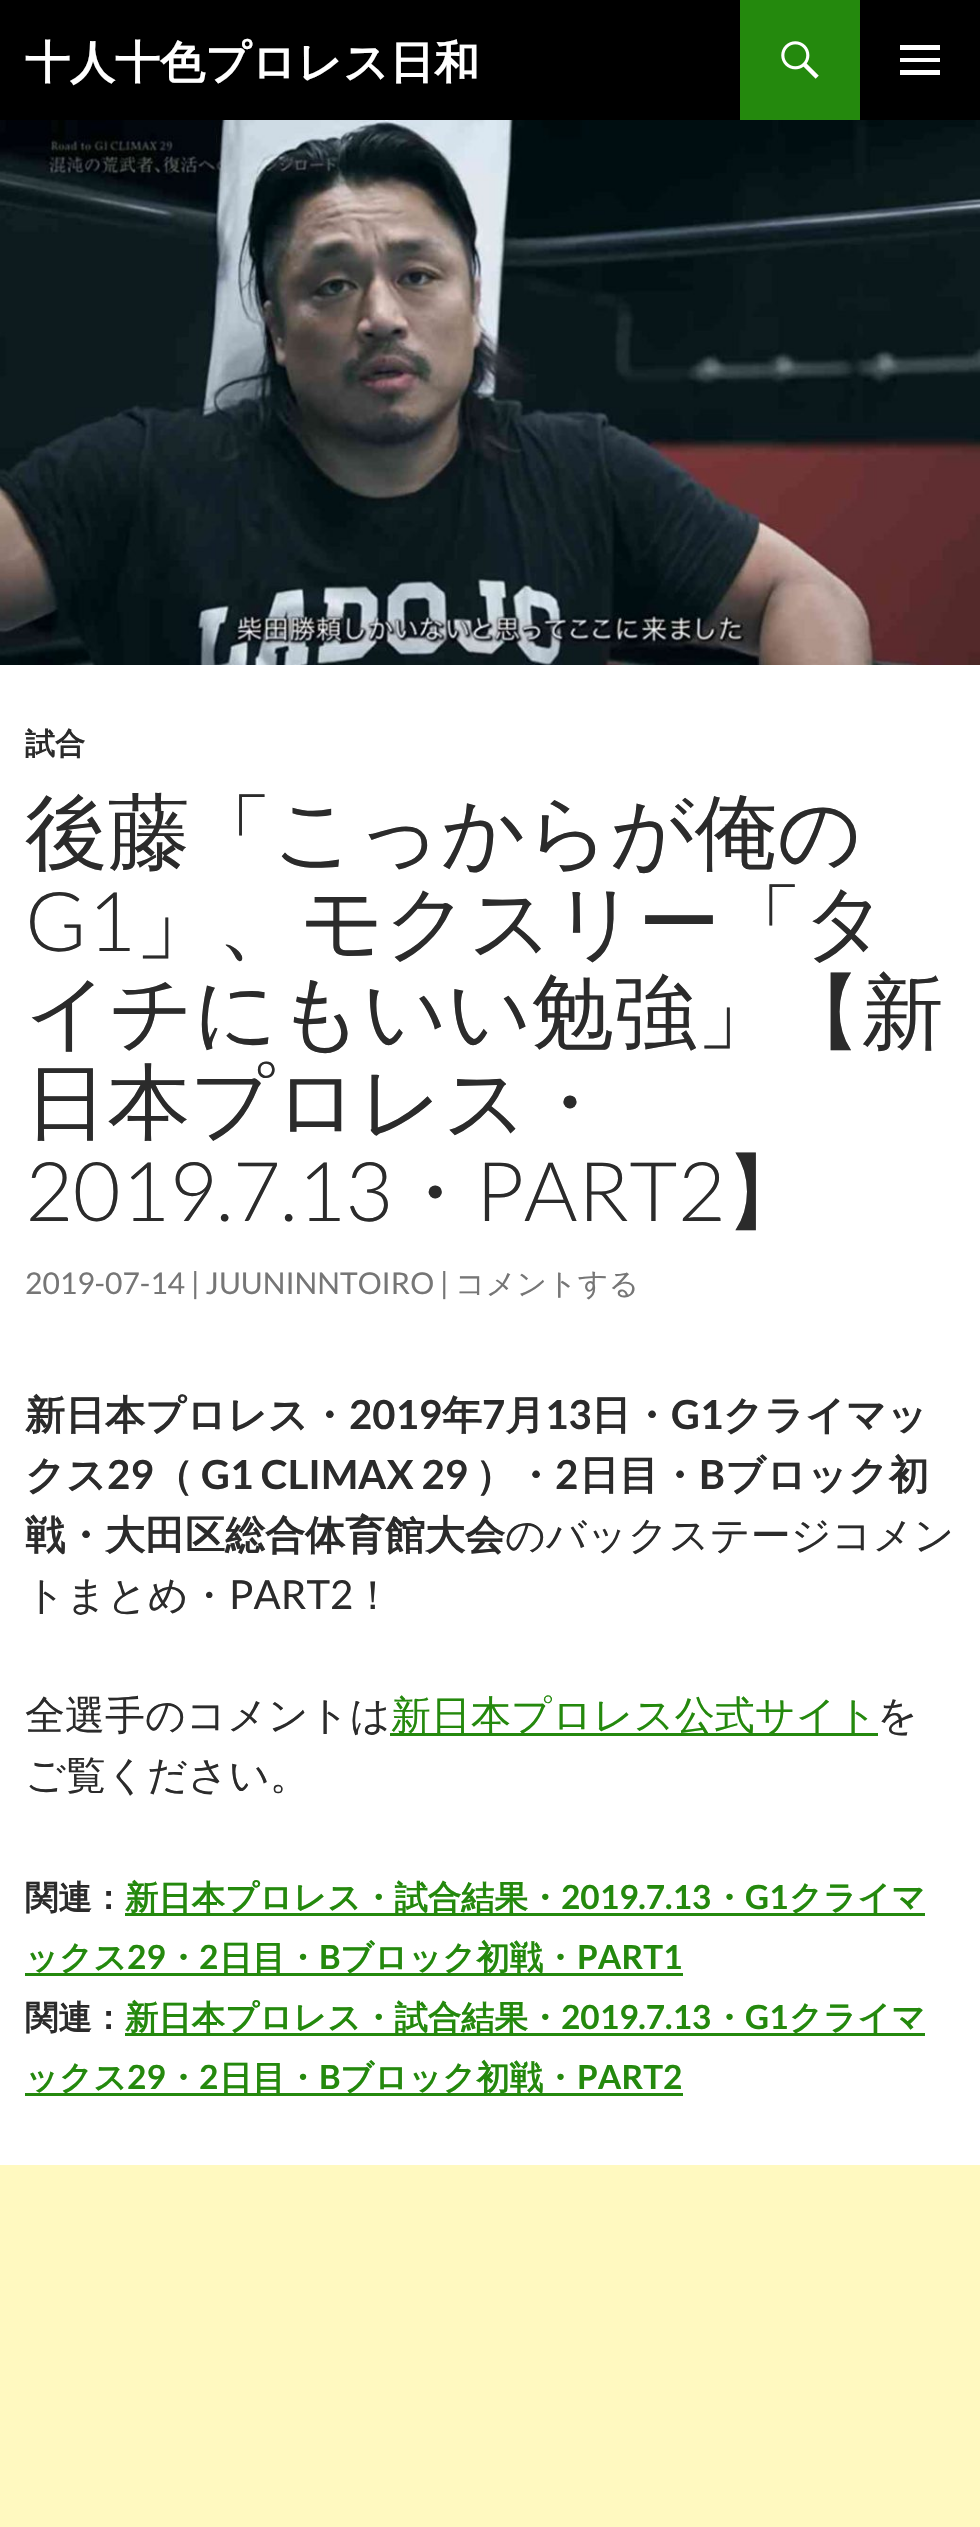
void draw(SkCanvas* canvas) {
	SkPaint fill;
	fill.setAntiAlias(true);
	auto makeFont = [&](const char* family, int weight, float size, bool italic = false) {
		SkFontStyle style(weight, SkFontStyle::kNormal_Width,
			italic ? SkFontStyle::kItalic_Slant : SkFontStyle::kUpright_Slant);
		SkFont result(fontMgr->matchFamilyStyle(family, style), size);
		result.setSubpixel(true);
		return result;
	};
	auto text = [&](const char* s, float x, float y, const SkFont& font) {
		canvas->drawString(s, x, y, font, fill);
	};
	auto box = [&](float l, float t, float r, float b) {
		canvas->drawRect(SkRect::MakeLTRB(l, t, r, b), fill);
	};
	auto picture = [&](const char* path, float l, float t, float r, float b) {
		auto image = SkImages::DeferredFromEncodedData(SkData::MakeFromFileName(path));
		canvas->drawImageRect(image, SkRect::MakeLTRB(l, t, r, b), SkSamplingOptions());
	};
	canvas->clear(0xFFFFFFFF);
	fill.setColor(0xFF000000);
	box(0, 0, 980, 120);
	fill.setColor(0xFF24890D);
	box(740, 0, 860, 120);
	picture("image0.png", 781, 41, 819, 79);
	fill.setColor(0xFFFFFFFF);
	canvas->drawPath(SkPathBuilder().moveTo(900, 75).lineTo(900, 70).lineTo(940, 70).lineTo(940, 75).close().moveTo(900, 62).lineTo(900, 58).lineTo(940, 58).lineTo(940, 62).close().moveTo(900, 50).lineTo(900, 45).lineTo(940, 45).lineTo(940, 50).close().detach(), fill);
	picture("image1.png", 0, 120, 980, 665);
	fill.setColor(0xFF24890D);
	box(390, 1733, 878, 1736);
	box(125, 1913, 925, 1916);
	box(25, 1973, 683, 1976);
	box(125, 2033, 925, 2036);
	box(25, 2093, 683, 2096);
	fill.setColor(0xFFFFF9C0);
	box(0, 2165, 980, 2527);
	auto font1 = makeFont("WenQuanYi Zen Hei", 700, 45);
	fill.setColor(0xFFFFFFFF);
	text("十人十色プロレス日和", 25, 78, font1);
	auto font2 = makeFont("WenQuanYi Zen Hei", 700, 30);
	fill.setColor(0xFF2B2B2B);
	text("試合", 25, 754, font2);
	auto font3 = makeFont("WenQuanYi Zen Hei", 500, 82.5f);
	text("後藤「こっからが俺の", 25, 861, font3);
	auto font4 = makeFont("Lato", 300, 82.5f);
	text("G1", 25, 951, font4);
	text("」、モクスリー「タ", 135, 951, font3);
	text("イチにもいい勉強」【新", 25, 1041, font3);
	text("日本プロレス・", 25, 1131, font3);
	text("2019.7.13", 25, 1221, font4);
	text("・", 393, 1221, font3);
	text("PART2", 475, 1221, font4);
	text("】", 725, 1221, font3);
	auto font5 = makeFont("Lato", 400, 30);
	fill.setColor(0xFF767676);
	text("2019-07-14 | JUUNINNTOIRO |", 25, 1294, font5);
	auto font6 = makeFont("WenQuanYi Zen Hei", 500, 30);
	text("コメントする", 455, 1294, font6);
	auto font7 = makeFont("WenQuanYi Zen Hei", 700, 40);
	fill.setColor(0xFF2B2B2B);
	text("新日本プロレス・", 25, 1429, font7);
	auto font8 = makeFont("Lato", 700, 40);
	text("2019", 349, 1429, font8);
	text("年", 442, 1429, font7);
	text("7", 482, 1429, font8);
	text("月", 505, 1429, font7);
	text("13", 545, 1429, font8);
	text("日・", 591, 1429, font7);
	text("G1", 671, 1429, font8);
	text("クライマッ", 723, 1429, font7);
	text("クス", 25, 1489, font7);
	text("29", 107, 1489, font8);
	text("（", 153, 1489, font7);
	text("G1 CLIMAX 29", 201, 1489, font8);
	text("）・", 475, 1489, font7);
	text("2", 555, 1489, font8);
	text("日目・", 579, 1489, font7);
	text("B", 699, 1489, font8);
	text("ブロック初", 725, 1489, font7);
	text("戦・大田区総合体育館大会", 25, 1549, font7);
	auto font9 = makeFont("WenQuanYi Zen Hei", 500, 40);
	text("のバックステージコメン", 505, 1549, font9);
	text("トまとめ・", 25, 1609, font9);
	auto font10 = makeFont("Lato", 400, 40);
	text("PART2", 229, 1609, font10);
	text("！", 353, 1609, font9);
	text("全選手のコメントは", 25, 1729, font9);
	fill.setColor(0xFF24890D);
	text("新日本プロレス公式サイト", 391, 1729, font9);
	fill.setColor(0xFF2B2B2B);
	text("を", 877, 1729, font9);
	text("ご覧ください。", 25, 1789, font9);
	auto font11 = makeFont("WenQuanYi Zen Hei", 700, 33.3f);
	text("関連：", 25, 1909, font11);
	fill.setColor(0xFF24890D);
	text("新日本プロレス・試合結果・", 125, 1909, font11);
	auto font12 = makeFont("Lato", 700, 33.3f);
	text("2019.7.13", 561, 1909, font12);
	text("・", 712, 1909, font11);
	text("G1", 745, 1909, font12);
	text("クライマ", 789, 1909, font11);
	text("ックス", 25, 1969, font11);
	text("29", 127, 1969, font12);
	text("・", 166, 1969, font11);
	text("2", 199, 1969, font12);
	text("日目・", 219, 1969, font11);
	text("B", 319, 1969, font12);
	text("ブロック初戦・", 340, 1969, font11);
	text("PART1", 577, 1969, font12);
	fill.setColor(0xFF2B2B2B);
	text("関連：", 25, 2029, font11);
	fill.setColor(0xFF24890D);
	text("新日本プロレス・試合結果・", 125, 2029, font11);
	text("2019.7.13", 561, 2029, font12);
	text("・", 712, 2029, font11);
	text("G1", 745, 2029, font12);
	text("クライマ", 789, 2029, font11);
	text("ックス", 25, 2089, font11);
	text("29", 127, 2089, font12);
	text("・", 166, 2089, font11);
	text("2", 199, 2089, font12);
	text("日目・", 219, 2089, font11);
	text("B", 319, 2089, font12);
	text("ブロック初戦・", 340, 2089, font11);
	text("PART2", 577, 2089, font12);
}
